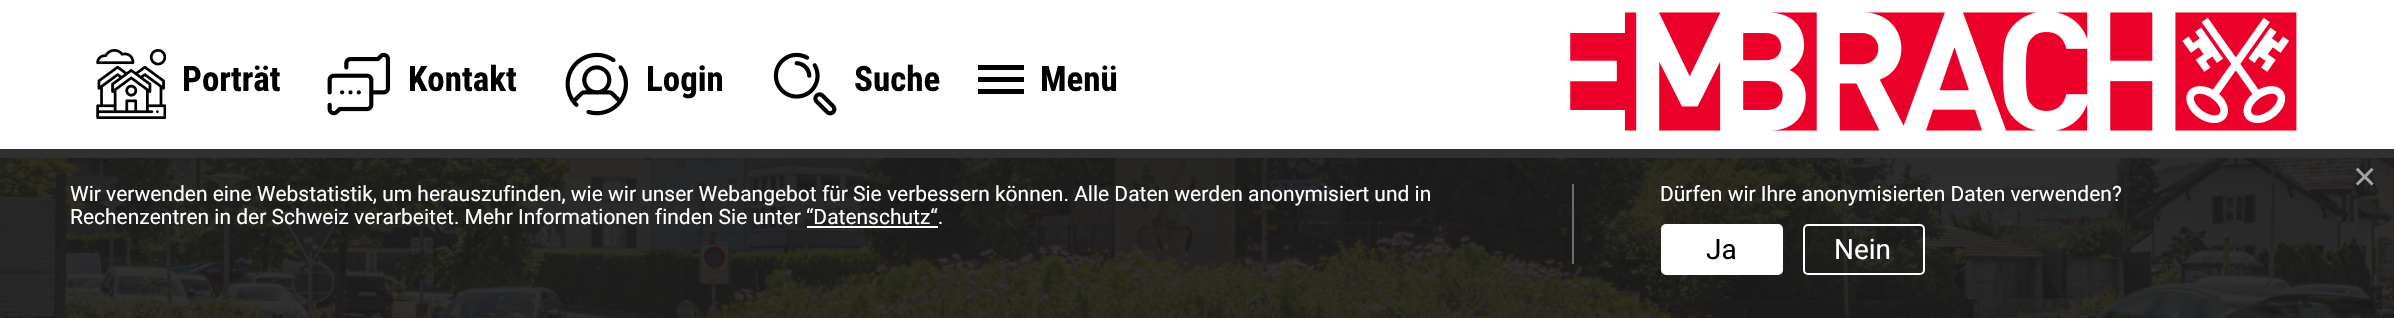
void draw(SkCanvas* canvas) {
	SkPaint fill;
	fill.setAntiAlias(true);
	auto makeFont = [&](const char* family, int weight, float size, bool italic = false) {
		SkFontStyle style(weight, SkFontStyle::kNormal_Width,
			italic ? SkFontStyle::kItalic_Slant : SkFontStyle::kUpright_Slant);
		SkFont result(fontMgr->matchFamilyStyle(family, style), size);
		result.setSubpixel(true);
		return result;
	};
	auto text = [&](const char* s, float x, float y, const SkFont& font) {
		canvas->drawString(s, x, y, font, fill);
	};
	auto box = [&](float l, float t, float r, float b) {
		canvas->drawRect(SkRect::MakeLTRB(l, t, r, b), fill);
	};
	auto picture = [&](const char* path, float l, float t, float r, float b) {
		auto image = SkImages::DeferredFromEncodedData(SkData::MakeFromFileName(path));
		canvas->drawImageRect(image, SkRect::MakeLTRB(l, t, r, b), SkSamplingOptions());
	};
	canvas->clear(0xFFFFFFFF);
	picture("image5.png", 0, 158, 2394, 318);
	fill.setColor(0x2E000000);
	fill.setMaskFilter(SkMaskFilter::MakeBlur(kNormal_SkBlurStyle, 42));
	canvas->drawRect(SkRect::MakeLTRB(0, 28, 2394, 186), fill);
	fill.setMaskFilter(nullptr);
	fill.setColor(0xFFFFFFFF);
	box(0, 0, 2394, 158);
	picture("image0.png", 96, 49, 166, 119);
	picture("image1.png", 327, 52, 391, 116);
	picture("image2.png", 565, 52, 628, 116);
	picture("image3.png", 773, 52, 837, 116);
	fill.setColor(0xFF000000);
	box(978, 65, 1024, 70);
	box(978, 77, 1024, 82);
	box(978, 89, 1024, 94);
	picture("image4.png", 1570, 12, 2297, 131);
	fill.setColor(0xE6191919);
	box(0, 149, 2394, 318);
	fill.setColor(0xFF6D6D6D);
	box(1572, 184, 1574, 264);
	fill.setColor(0xFFFFFFFF);
	box(807, 226, 938, 228);
	canvas->drawRoundRect(SkRect::MakeLTRB(1662, 225, 1782, 274), 4, 4, fill);
	fill.setStyle(SkPaint::kStroke_Style);
	fill.setStrokeWidth(2);
	canvas->drawRoundRect(SkRect::MakeLTRB(1662, 225, 1782, 274), 4, 4, fill);
	canvas->drawRoundRect(SkRect::MakeLTRB(1804, 225, 1924, 274), 4, 4, fill);
	auto font1 = makeFont("Roboto Condensed", 700, 35);
	fill.setStyle(SkPaint::kFill_Style);
	fill.setColor(0xFF000000);
	text("Porträt", 182, 91, font1);
	text("Kontakt", 408, 91, font1);
	text("Login", 646, 91, font1);
	text("Suche", 854, 91, font1);
	text("Menü", 1040, 91, font1);
	auto font2 = makeFont("Liberation Sans", 400, 40);
	fill.setColor(0xFFA2A2A2);
	text("×", 2353, 190, font2);
	auto font3 = makeFont("Roboto", 400, 21);
	fill.setColor(0xFFFFFFFF);
	text("Wir verwenden eine Webstatistik, um herauszufinden, wie wir unser Webangebot für Sie verbessern können. Alle Daten werden anonymisiert und in", 70, 201, font3);
	text("Rechenzentren in der Schweiz verarbeitet. Mehr Informationen finden Sie unter “Datenschutz“.", 70, 224, font3);
	text("Dürfen wir Ihre anonymisierten Daten verwenden?", 1660, 201, font3);
	auto font4 = makeFont("Roboto", 400, 28);
	fill.setColor(0xFF000000);
	text("Ja", 1706, 259, font4);
	fill.setColor(0xFFFFFFFF);
	text("Nein", 1834, 259, font4);
}
